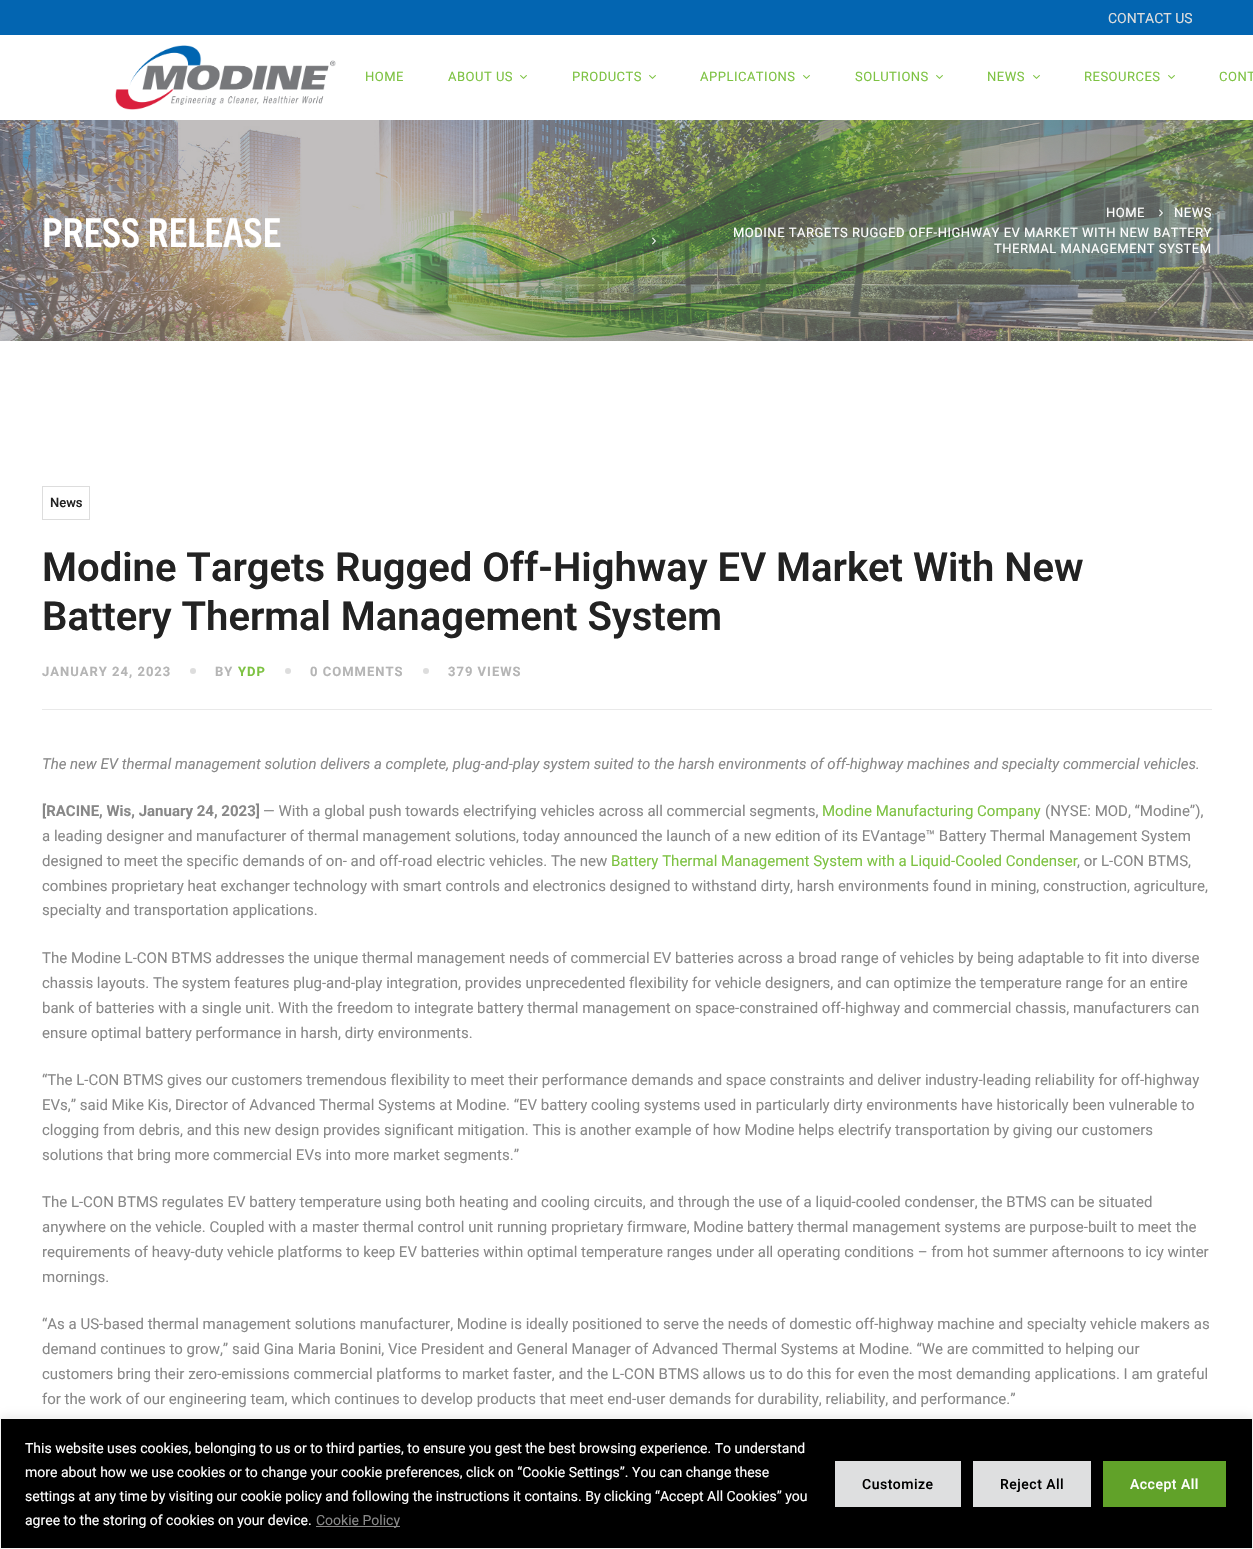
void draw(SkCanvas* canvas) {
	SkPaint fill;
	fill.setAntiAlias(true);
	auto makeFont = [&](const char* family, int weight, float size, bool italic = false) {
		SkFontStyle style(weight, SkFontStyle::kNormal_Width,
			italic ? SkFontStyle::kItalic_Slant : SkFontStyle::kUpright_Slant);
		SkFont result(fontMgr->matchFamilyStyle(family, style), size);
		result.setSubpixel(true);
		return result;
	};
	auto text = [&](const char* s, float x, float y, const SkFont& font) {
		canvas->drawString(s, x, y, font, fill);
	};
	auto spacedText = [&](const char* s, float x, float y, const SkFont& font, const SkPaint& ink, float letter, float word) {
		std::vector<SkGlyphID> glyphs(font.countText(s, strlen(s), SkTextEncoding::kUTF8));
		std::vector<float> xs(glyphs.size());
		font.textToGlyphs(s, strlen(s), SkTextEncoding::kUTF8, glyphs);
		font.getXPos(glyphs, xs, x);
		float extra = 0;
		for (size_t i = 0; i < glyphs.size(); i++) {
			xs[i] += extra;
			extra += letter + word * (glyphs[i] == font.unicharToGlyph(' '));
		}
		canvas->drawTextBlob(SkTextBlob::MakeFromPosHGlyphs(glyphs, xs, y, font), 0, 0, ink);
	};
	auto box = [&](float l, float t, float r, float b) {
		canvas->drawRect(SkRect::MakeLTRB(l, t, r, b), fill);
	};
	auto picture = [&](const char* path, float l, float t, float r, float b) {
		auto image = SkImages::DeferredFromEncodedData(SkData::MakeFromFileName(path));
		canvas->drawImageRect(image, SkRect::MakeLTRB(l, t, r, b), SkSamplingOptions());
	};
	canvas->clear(0xFFFFFFFF);
	fill.setColor(0xFF0365B1);
	box(0, 0, 1253, 35);
	picture("image0.png", 115, 45, 336, 110);
	picture("image1.png", 520, 75, 527, 79);
	picture("image1.png", 649, 75, 656, 79);
	picture("image1.png", 803, 75, 810, 79);
	picture("image1.png", 936, 75, 943, 79);
	picture("image1.png", 1033, 75, 1040, 79);
	picture("image1.png", 1168, 75, 1175, 79);
	picture("image2.png", 0, 120, 1253, 341);
	picture("image3.png", 1159, 209, 1163, 217);
	picture("image4.png", 652, 237, 656, 245);
	fill.setColor(0xFFE9E9E9);
	box(42, 709, 1212, 710);
	fill.setStyle(SkPaint::kStroke_Style);
	fill.setStrokeWidth(1);
	fill.setColor(0xFFDDDDDD);
	canvas->drawRect(SkRect::MakeLTRB(42.5f, 486.5f, 89.5f, 519.5f), fill);
	fill.setStyle(SkPaint::kFill_Style);
	canvas->drawCircle(193, 671, 3, fill);
	canvas->drawCircle(288, 671, 3, fill);
	canvas->drawCircle(426, 671, 3, fill);
	fill.setColor(0x4DACABAB);
	fill.setMaskFilter(SkMaskFilter::MakeBlur(kNormal_SkBlurStyle, 5));
	canvas->drawRect(SkRect::MakeLTRB(0, 1417, 1253, 1548), fill);
	fill.setMaskFilter(nullptr);
	fill.setColor(0xFF000000);
	canvas->drawRect(SkRect::MakeLTRB(0.5f, 1418.5f, 1252.5f, 1548.5f), fill);
	fill.setStyle(SkPaint::kStroke_Style);
	fill.setColor(0xFFF4F4F4);
	canvas->drawRect(SkRect::MakeLTRB(0.5f, 1418.5f, 1252.5f, 1548.5f), fill);
	fill.setStyle(SkPaint::kFill_Style);
	fill.setColor(0xFF898888);
	box(316, 1526, 400, 1527);
	fill.setColor(0xFFDEDFE0);
	canvas->drawRoundRect(SkRect::MakeLTRB(834, 1460, 962, 1508), 1, 1, fill);
	fill.setStyle(SkPaint::kStroke_Style);
	fill.setStrokeWidth(2);
	fill.setColor(0xFF000000);
	canvas->drawRoundRect(SkRect::MakeLTRB(834, 1460, 962, 1508), 1, 1, fill);
	fill.setStyle(SkPaint::kFill_Style);
	fill.setColor(0xFFDEDFE0);
	canvas->drawRoundRect(SkRect::MakeLTRB(972, 1460, 1092, 1508), 1, 1, fill);
	fill.setStyle(SkPaint::kStroke_Style);
	fill.setColor(0xFF000000);
	canvas->drawRoundRect(SkRect::MakeLTRB(972, 1460, 1092, 1508), 1, 1, fill);
	fill.setStyle(SkPaint::kFill_Style);
	fill.setColor(0xFF61A229);
	canvas->drawRoundRect(SkRect::MakeLTRB(1102, 1460, 1227, 1508), 1, 1, fill);
	fill.setStyle(SkPaint::kStroke_Style);
	fill.setColor(0xFF000000);
	canvas->drawRoundRect(SkRect::MakeLTRB(1102, 1460, 1227, 1508), 1, 1, fill);
	auto font1 = makeFont("Roboto", 400, 14);
	fill.setStyle(SkPaint::kFill_Style);
	fill.setColor(0xFFDDDDDD);
	text("CONTACT US", 1108, 23, font1);
	auto font2 = makeFont("Roboto", 400, 13);
	fill.setColor(0xFF7DC242);
	spacedText("HOME", 365, 81, font2, fill, 0.5f, 0);
	spacedText("ABOUT US", 448, 81, font2, fill, 0.5f, 0);
	spacedText("PRODUCTS", 572, 81, font2, fill, 0.5f, 0);
	spacedText("APPLICATIONS", 700, 81, font2, fill, 0.5f, 0);
	spacedText("SOLUTIONS", 855, 81, font2, fill, 0.5f, 0);
	spacedText("NEWS", 987, 81, font2, fill, 0.5f, 0);
	spacedText("RESOURCES", 1084, 81, font2, fill, 0.5f, 0);
	spacedText("CONT", 1219, 81, font2, fill, 0.5f, 0);
	auto font3 = makeFont("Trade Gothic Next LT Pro", 700, 40);
	fill.setColor(0xFFFFFFFF);
	text("PRESS RELEASE", 42, 247, font3);
	spacedText("HOME", 1106, 217, font2, fill, 0.5f, 0);
	spacedText("NEWS", 1174, 217, font2, fill, 0.5f, 0);
	spacedText("MODINE TARGETS RUGGED OFF-HIGHWAY EV MARKET WITH NEW BATTERY", 733, 237, font2, fill, 0.5f, 0);
	spacedText("THERMAL MANAGEMENT SYSTEM", 994, 253, font2, fill, 0.5f, 0);
	auto font4 = makeFont("Roboto", 500, 13);
	fill.setColor(0xFF222222);
	text("News", 50, 507, font4);
	auto font5 = makeFont("Roboto", 600, 40);
	text("Modine Targets Rugged Off-Highway EV Market With New", 42, 581, font5);
	text("Battery Thermal Management System", 42, 630, font5);
	auto font6 = makeFont("Roboto", 700, 13);
	fill.setColor(0xFFB5B5B5);
	spacedText("JANUARY 24, 2023", 42, 676, font6, fill, 1, 0);
	spacedText("BY", 215, 676, font6, fill, 1, 0);
	fill.setColor(0xFF7DC242);
	spacedText("YDP", 238, 676, font6, fill, 1, 0);
	fill.setColor(0xFFB5B5B5);
	spacedText("0 COMMENTS", 310, 676, font6, fill, 1, 0);
	spacedText("379 VIEWS", 448, 676, font6, fill, 1, 0);
	auto font7 = makeFont("Roboto", 400, 15, true);
	fill.setColor(0xFF888888);
	text("The new EV thermal management solution delivers a complete, plug-and-play system suited to the harsh environments of off-highway machines and specialty commercial vehicles.", 42, 769, font7);
	auto font8 = makeFont("Roboto", 700, 15);
	text("[RACINE, Wis, January 24, 2023]", 42, 816, font8);
	auto font9 = makeFont("Roboto", 400, 15);
	text("— With a global push towards electrifying vehicles across all commercial segments,", 263, 816, font9);
	fill.setColor(0xFF7DC242);
	text("Modine Manufacturing Company", 822, 816, font9);
	fill.setColor(0xFF888888);
	text("(NYSE: MOD, “Modine”),", 1045, 816, font9);
	text("a leading designer and manufacturer of thermal management solutions, today announced the launch of a new edition of its EVantage™ Battery Thermal Management System", 42, 841, font9);
	text("designed to meet the specific demands of on- and off-road electric vehicles. The new", 42, 866, font9);
	fill.setColor(0xFF7DC242);
	text("Battery Thermal Management System with a Liquid-Cooled Condenser", 611, 866, font9);
	fill.setColor(0xFF888888);
	text(", or L-CON BTMS,", 1077, 866, font9);
	text("combines proprietary heat exchanger technology with smart controls and electronics designed to withstand dirty, harsh environments found in mining, construction, agriculture,", 42, 891, font9);
	text("specialty and transportation applications.", 42, 915, font9);
	text("The Modine L-CON BTMS addresses the unique thermal management needs of commercial EV batteries across a broad range of vehicles by being adaptable to fit into diverse", 42, 963, font9);
	text("chassis layouts. The system features plug-and-play integration, provides unprecedented flexibility for vehicle designers, and can optimize the temperature range for an entire", 42, 988, font9);
	text("bank of batteries with a single unit. With the freedom to integrate battery thermal management on space-constrained off-highway and commercial chassis, manufacturers can", 42, 1013, font9);
	text("ensure optimal battery performance in harsh, dirty environments.", 42, 1038, font9);
	text("“The L-CON BTMS gives our customers tremendous flexibility to meet their performance demands and space constraints and deliver industry-leading reliability for off-highway", 42, 1085, font9);
	text("EVs,” said Mike Kis, Director of Advanced Thermal Systems at Modine. “EV battery cooling systems used in particularly dirty environments have historically been vulnerable to", 42, 1110, font9);
	text("clogging from debris, and this new design provides significant mitigation. This is another example of how Modine helps electrify transportation by giving our customers", 42, 1135, font9);
	text("solutions that bring more commercial EVs into more market segments.”", 42, 1160, font9);
	text("The L-CON BTMS regulates EV battery temperature using both heating and cooling circuits, and through the use of a liquid-cooled condenser, the BTMS can be situated", 42, 1207, font9);
	text("anywhere on the vehicle. Coupled with a master thermal control unit running proprietary firmware, Modine battery thermal management systems are purpose-built to meet the", 42, 1232, font9);
	text("requirements of heavy-duty vehicle platforms to keep EV batteries within optimal temperature ranges under all operating conditions – from hot summer afternoons to icy winter", 42, 1257, font9);
	text("mornings.", 42, 1282, font9);
	text("“As a US-based thermal management solutions manufacturer, Modine is ideally positioned to serve the needs of domestic off-highway machine and specialty vehicle makers as", 42, 1329, font9);
	text("demand continues to grow,” said Gina Maria Bonini, Vice President and General Manager of Advanced Thermal Systems at Modine. “We are committed to helping our", 42, 1354, font9);
	text("customers bring their zero-emissions commercial platforms to market faster, and the L-CON BTMS allows us to do this for even the most demanding applications. I am grateful", 42, 1379, font9);
	text("for the work of our engineering team, which continues to develop products that meet end-user demands for durability, reliability, and performance.”", 42, 1404, font9);
	fill.setColor(0xFFFFFFFF);
	text("This website uses cookies, belonging to us or to third parties, to ensure you gest the best browsing experience. To understand", 25, 1453, font1);
	text("more about how we use cookies or to change your cookie preferences, click on “Cookie Settings”. You can change these", 25, 1477, font1);
	text("settings at any time by visiting our cookie policy and following the instructions it contains. By clicking “Accept All Cookies” you", 25, 1501, font1);
	text("agree to the storing of cookies on your device.", 25, 1525, font1);
	fill.setColor(0xFF888888);
	text("Cookie Policy", 316, 1525, font1);
	auto font10 = makeFont("Roboto", 500, 14);
	fill.setColor(0xFF000000);
	spacedText("Customize", 862, 1489, font10, fill, 0.5f, 0);
	spacedText("Reject All", 1000, 1489, font10, fill, 0.5f, 0);
	fill.setColor(0xFFFFFFFF);
	spacedText("Accept All", 1130, 1489, font10, fill, 0.5f, 0);
}
